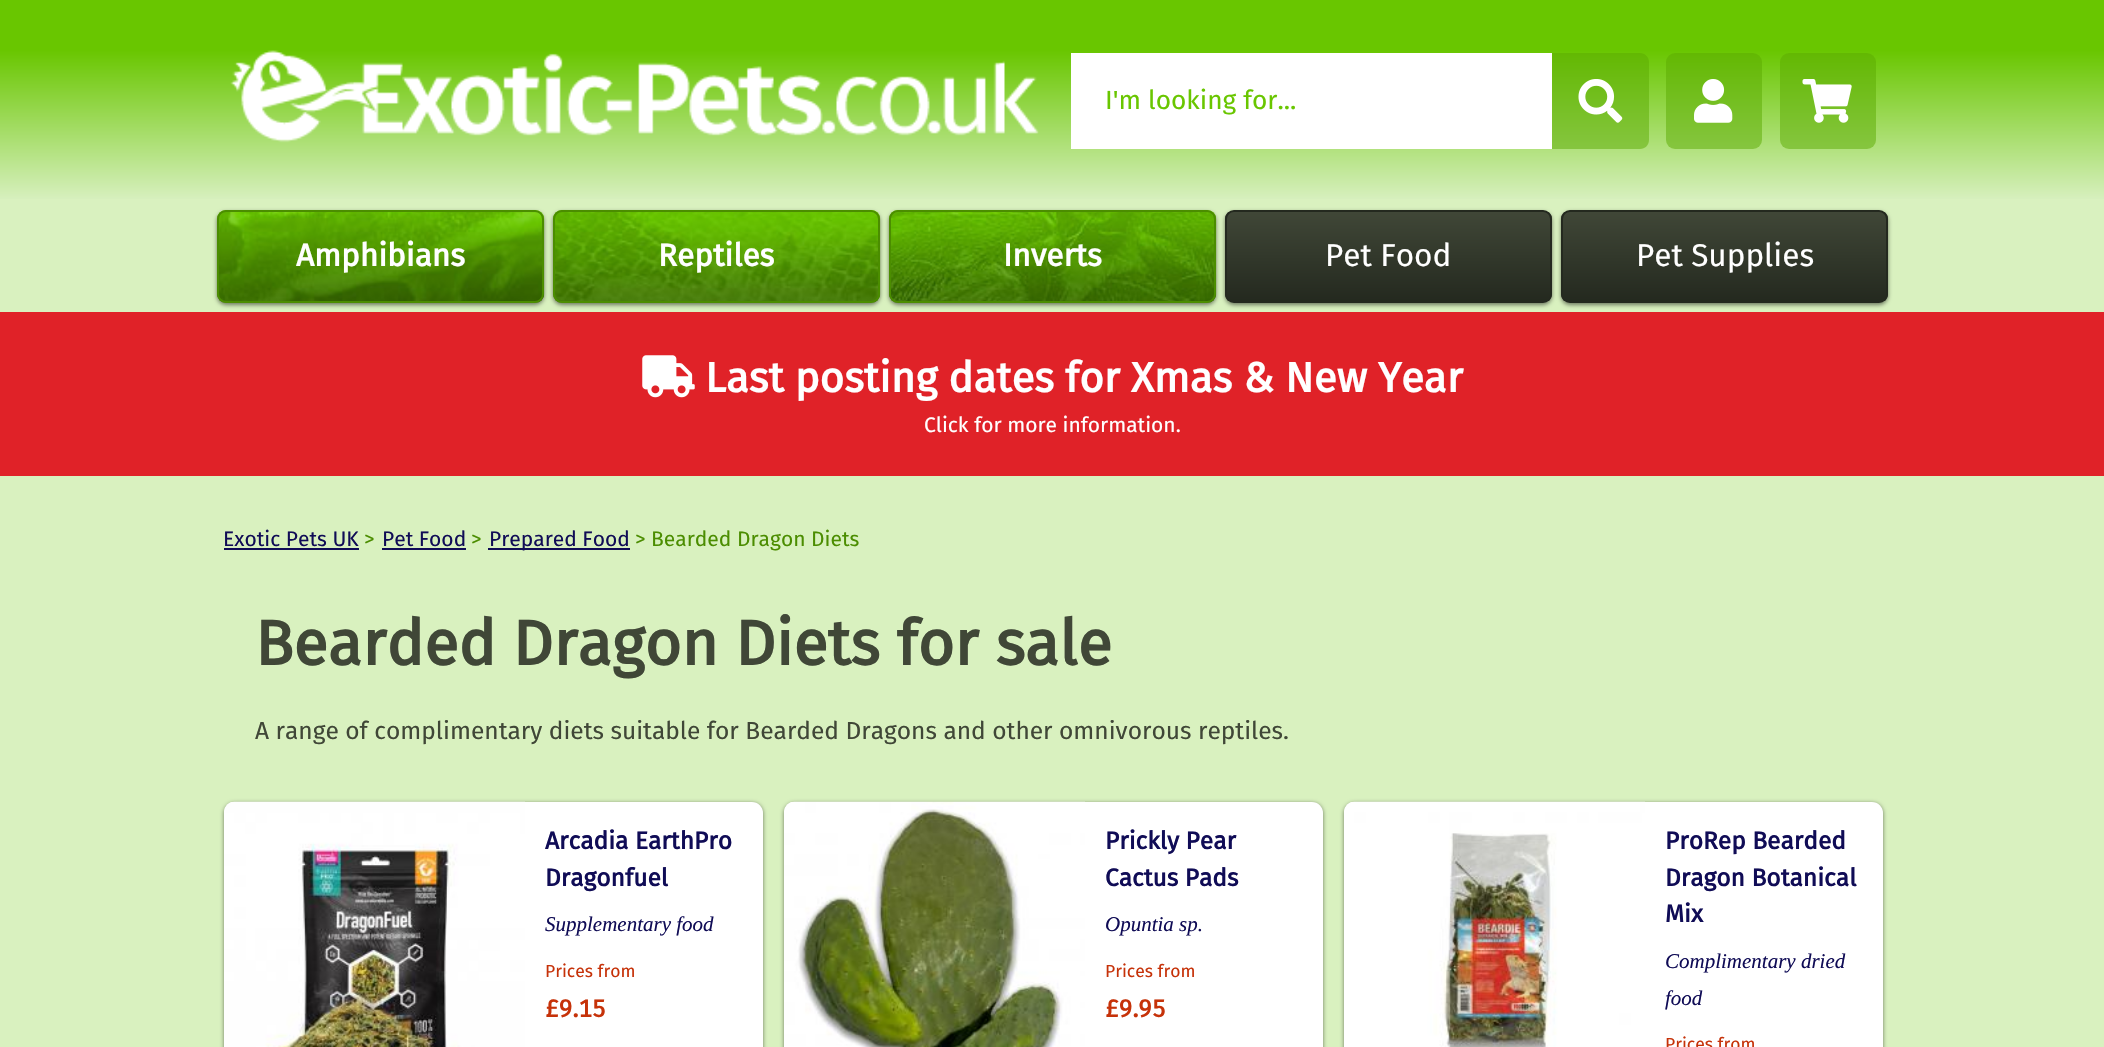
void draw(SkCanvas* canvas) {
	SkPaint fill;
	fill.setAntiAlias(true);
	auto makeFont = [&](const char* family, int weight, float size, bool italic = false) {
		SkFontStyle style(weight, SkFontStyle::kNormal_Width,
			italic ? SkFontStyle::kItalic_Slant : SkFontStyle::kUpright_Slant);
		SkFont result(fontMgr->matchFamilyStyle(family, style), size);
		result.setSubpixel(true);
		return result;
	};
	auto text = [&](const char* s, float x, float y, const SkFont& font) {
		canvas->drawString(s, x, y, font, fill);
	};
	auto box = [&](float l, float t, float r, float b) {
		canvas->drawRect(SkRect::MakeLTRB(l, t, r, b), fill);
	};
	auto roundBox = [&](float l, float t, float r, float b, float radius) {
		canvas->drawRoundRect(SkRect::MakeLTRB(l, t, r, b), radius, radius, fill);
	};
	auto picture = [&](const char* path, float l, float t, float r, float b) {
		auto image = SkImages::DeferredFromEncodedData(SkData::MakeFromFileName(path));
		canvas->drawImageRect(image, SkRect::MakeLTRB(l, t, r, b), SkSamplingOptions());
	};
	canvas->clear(0xFFD9F1BF);
	{
		const SkColor colors[] = {0xFF69C600, 0xFF69C600, 0xFFD8F0C0};
		const float stops[] = {0, 0.25f, 1};
		const SkPoint ends[] = {{1053, 0}, {1053, 201}};
		fill.setShader(SkGradientShader::MakeLinear(ends, colors, stops, 3, SkTileMode::kClamp));
		fill.setAlpha(255);
	}
	box(0, 0, 2104, 199);
	picture("image0.png", 230, 50, 1039, 143);
	fill.setShader(nullptr);
	fill.setColor(0xFFFFFFFF);
	box(1071, 53, 1552, 149);
	fill.setColor(0x805AA900);
	canvas->drawPath(SkPathBuilder().moveTo(1552, 53).lineTo(1640, 53).cubicTo(1645, 53, 1649, 57, 1649, 62).lineTo(1649, 140).cubicTo(1649, 145, 1645, 149, 1640, 149).lineTo(1552, 149).close().detach(), fill);
	picture("image1.png", 1578, 79, 1623, 123);
	roundBox(1666, 53, 1762, 149, 9);
	picture("image2.png", 1694, 79, 1733, 123);
	roundBox(1780, 53, 1876, 149, 9);
	picture("image3.png", 1802, 79, 1852, 123);
	fill.setColor(0x80000000);
	fill.setMaskFilter(SkMaskFilter::MakeBlur(kNormal_SkBlurStyle, 2));
	canvas->drawRoundRect(SkRect::MakeLTRB(217, 212, 544, 305), 9, 9, fill);
	fill.setMaskFilter(nullptr);
	picture("image4.png", 217, 210, 545, 303);
	fill.setStyle(SkPaint::kStroke_Style);
	fill.setStrokeWidth(2);
	fill.setColor(0xFF4B8D00);
	canvas->drawRoundRect(SkRect::MakeLTRB(218, 211, 543, 302), 8, 8, fill);
	fill.setStyle(SkPaint::kFill_Style);
	fill.setColor(0x80000000);
	fill.setMaskFilter(SkMaskFilter::MakeBlur(kNormal_SkBlurStyle, 2));
	canvas->drawRoundRect(SkRect::MakeLTRB(553, 212, 880, 305), 9, 9, fill);
	fill.setMaskFilter(nullptr);
	picture("image5.png", 553, 210, 881, 303);
	fill.setStyle(SkPaint::kStroke_Style);
	fill.setColor(0xFF4B8D00);
	canvas->drawRoundRect(SkRect::MakeLTRB(554, 211, 879, 302), 8, 8, fill);
	fill.setStyle(SkPaint::kFill_Style);
	fill.setColor(0x80000000);
	fill.setMaskFilter(SkMaskFilter::MakeBlur(kNormal_SkBlurStyle, 2));
	canvas->drawRoundRect(SkRect::MakeLTRB(889, 212, 1216, 305), 9, 9, fill);
	fill.setMaskFilter(nullptr);
	picture("image6.png", 889, 210, 1217, 303);
	fill.setStyle(SkPaint::kStroke_Style);
	fill.setColor(0xFF4B8D00);
	canvas->drawRoundRect(SkRect::MakeLTRB(890, 211, 1215, 302), 8, 8, fill);
	fill.setStyle(SkPaint::kFill_Style);
	fill.setColor(0x80000000);
	fill.setMaskFilter(SkMaskFilter::MakeBlur(kNormal_SkBlurStyle, 2));
	canvas->drawRoundRect(SkRect::MakeLTRB(1225, 212, 1552, 305), 9, 9, fill);
	fill.setMaskFilter(nullptr);
	canvas->save();
	canvas->clipPath(SkPathBuilder().moveTo(1234, 210).lineTo(1543, 210).cubicTo(1548, 210, 1552, 214, 1552, 219).lineTo(1552, 294).cubicTo(1552, 299, 1548, 303, 1543, 303).lineTo(1234, 303).cubicTo(1229, 303, 1225, 299, 1225, 294).lineTo(1225, 219).cubicTo(1225, 214, 1229, 210, 1234, 210).close().detach(), true);
	{
		const SkColor colors[] = {0xFF404737, 0xFF24291F};
		const float stops[] = {0, 1};
		const SkPoint ends[] = {{1389, 212}, {1389, 301}};
		fill.setShader(SkGradientShader::MakeLinear(ends, colors, stops, 2, SkTileMode::kClamp));
		fill.setAlpha(255);
	}
	box(1225, 212, 1552, 301);
	canvas->restore();
	fill.setStyle(SkPaint::kStroke_Style);
	fill.setShader(nullptr);
	fill.setColor(0xFF24291F);
	canvas->drawRoundRect(SkRect::MakeLTRB(1226, 211, 1551, 302), 8, 8, fill);
	fill.setStyle(SkPaint::kFill_Style);
	fill.setColor(0x80000000);
	fill.setMaskFilter(SkMaskFilter::MakeBlur(kNormal_SkBlurStyle, 2));
	canvas->drawRoundRect(SkRect::MakeLTRB(1561, 212, 1888, 305), 9, 9, fill);
	fill.setMaskFilter(nullptr);
	canvas->save();
	canvas->clipPath(SkPathBuilder().moveTo(1570, 210).lineTo(1879, 210).cubicTo(1884, 210, 1888, 214, 1888, 219).lineTo(1888, 294).cubicTo(1888, 299, 1884, 303, 1879, 303).lineTo(1570, 303).cubicTo(1565, 303, 1561, 299, 1561, 294).lineTo(1561, 219).cubicTo(1561, 214, 1565, 210, 1570, 210).close().detach(), true);
	{
		const SkColor colors[] = {0xFF404737, 0xFF24291F};
		const float stops[] = {0, 1};
		const SkPoint ends[] = {{1725, 212}, {1725, 301}};
		fill.setShader(SkGradientShader::MakeLinear(ends, colors, stops, 2, SkTileMode::kClamp));
		fill.setAlpha(255);
	}
	box(1561, 212, 1888, 301);
	canvas->restore();
	fill.setStyle(SkPaint::kStroke_Style);
	fill.setShader(nullptr);
	fill.setColor(0xFF24291F);
	canvas->drawRoundRect(SkRect::MakeLTRB(1562, 211, 1887, 302), 8, 8, fill);
	fill.setStyle(SkPaint::kFill_Style);
	fill.setColor(0xFFE02228);
	box(0, 312, 2104, 476);
	picture("image7.png", 642, 355, 695, 398);
	fill.setColor(0xFF100C56);
	box(224, 548, 359, 550);
	box(382, 548, 466, 550);
	box(488, 548, 630, 550);
	fill.setColor(0x80000000);
	fill.setMaskFilter(SkMaskFilter::MakeBlur(kNormal_SkBlurStyle, 2));
	canvas->drawRoundRect(SkRect::MakeLTRB(224, 803, 763, 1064), 11, 11, fill);
	fill.setMaskFilter(nullptr);
	fill.setColor(0xFFFFFFFF);
	roundBox(224, 802, 763, 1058, 11);
	picture("image8.png", 224, 801, 525, 1047);
	fill.setColor(0x80000000);
	fill.setMaskFilter(SkMaskFilter::MakeBlur(kNormal_SkBlurStyle, 2));
	canvas->drawRoundRect(SkRect::MakeLTRB(784, 803, 1323, 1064), 11, 11, fill);
	fill.setMaskFilter(nullptr);
	fill.setColor(0xFFFFFFFF);
	roundBox(784, 802, 1323, 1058, 11);
	picture("image9.png", 784, 801, 1085, 1047);
	fill.setColor(0x80000000);
	fill.setMaskFilter(SkMaskFilter::MakeBlur(kNormal_SkBlurStyle, 2));
	canvas->drawRoundRect(SkRect::MakeLTRB(1344, 803, 1883, 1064), 11, 11, fill);
	fill.setMaskFilter(nullptr);
	fill.setColor(0xFFFFFFFF);
	roundBox(1344, 802, 1883, 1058, 11);
	picture("image10.png", 1344, 801, 1645, 1047);
	auto font1 = makeFont("Fira Sans", 400, 26.25f);
	fill.setColor(0xFF69C600);
	text("I'm looking for...", 1105, 109, font1);
	auto font2 = makeFont("Fira Sans", 700, 31.5f);
	fill.setColor(0xFFFFFFFF);
	text("Amphibians", 296, 266, font2);
	text("Reptiles", 658, 266, font2);
	text("Inverts", 1003, 266, font2);
	auto font3 = makeFont("Fira Sans", 400, 31.5f);
	text("Pet Food", 1325, 266, font3);
	text("Pet Supplies", 1636, 266, font3);
	auto font4 = makeFont("Fira Sans", 700, 42);
	text("Last posting dates for Xmas & New Year", 705, 392, font4);
	auto font5 = makeFont("Fira Sans", 400, 21);
	text("Click for more information.", 924, 432, font5);
	fill.setColor(0xFF100C56);
	text("Exotic Pets UK", 223, 546, font5);
	fill.setColor(0xFF4B8D00);
	text(">", 364, 546, font5);
	fill.setColor(0xFF100C56);
	text("Pet Food", 382, 546, font5);
	fill.setColor(0xFF4B8D00);
	text(">", 471, 546, font5);
	fill.setColor(0xFF100C56);
	text("Prepared Food", 489, 546, font5);
	fill.setColor(0xFF4B8D00);
	text("> Bearded Dragon Diets", 635, 546, font5);
	auto font6 = makeFont("Fira Sans", 700, 63);
	fill.setColor(0xFF404737);
	text("Bearded Dragon Diets for sale", 255, 665, font6);
	auto font7 = makeFont("Fira Sans", 400, 24.5f);
	text("A range of complimentary diets suitable for Bearded Dragons and other omnivorous reptiles.", 255, 739, font7);
	auto font8 = makeFont("Fira Sans", 700, 24.5f);
	fill.setColor(0xFF100C56);
	text("Arcadia EarthPro", 545, 849, font8);
	text("Dragonfuel", 545, 886, font8);
	auto font9 = makeFont("Liberation Serif", 400, 21, true);
	text("Supplementary food", 545, 931, font9);
	auto font10 = makeFont("Fira Sans", 400, 17.5f);
	fill.setColor(0xFFC63209);
	text("Prices from", 545, 977, font10);
	auto font11 = makeFont("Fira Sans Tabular", 700, 24.5f);
	text("£9.15", 545, 1017, font11);
	fill.setColor(0xFF100C56);
	text("Prickly Pear", 1105, 849, font8);
	text("Cactus Pads", 1105, 886, font8);
	text("Opuntia sp.", 1105, 931, font9);
	fill.setColor(0xFFC63209);
	text("Prices from", 1105, 977, font10);
	text("£9.95", 1105, 1017, font11);
	fill.setColor(0xFF100C56);
	text("ProRep Bearded", 1665, 849, font8);
	text("Dragon Botanical", 1665, 886, font8);
	text("Mix", 1665, 922, font8);
	text("Complimentary dried", 1665, 968, font9);
	text("food", 1665, 1005, font9);
	fill.setColor(0xFFC63209);
	text("Prices from", 1665, 1050, font10);
}
